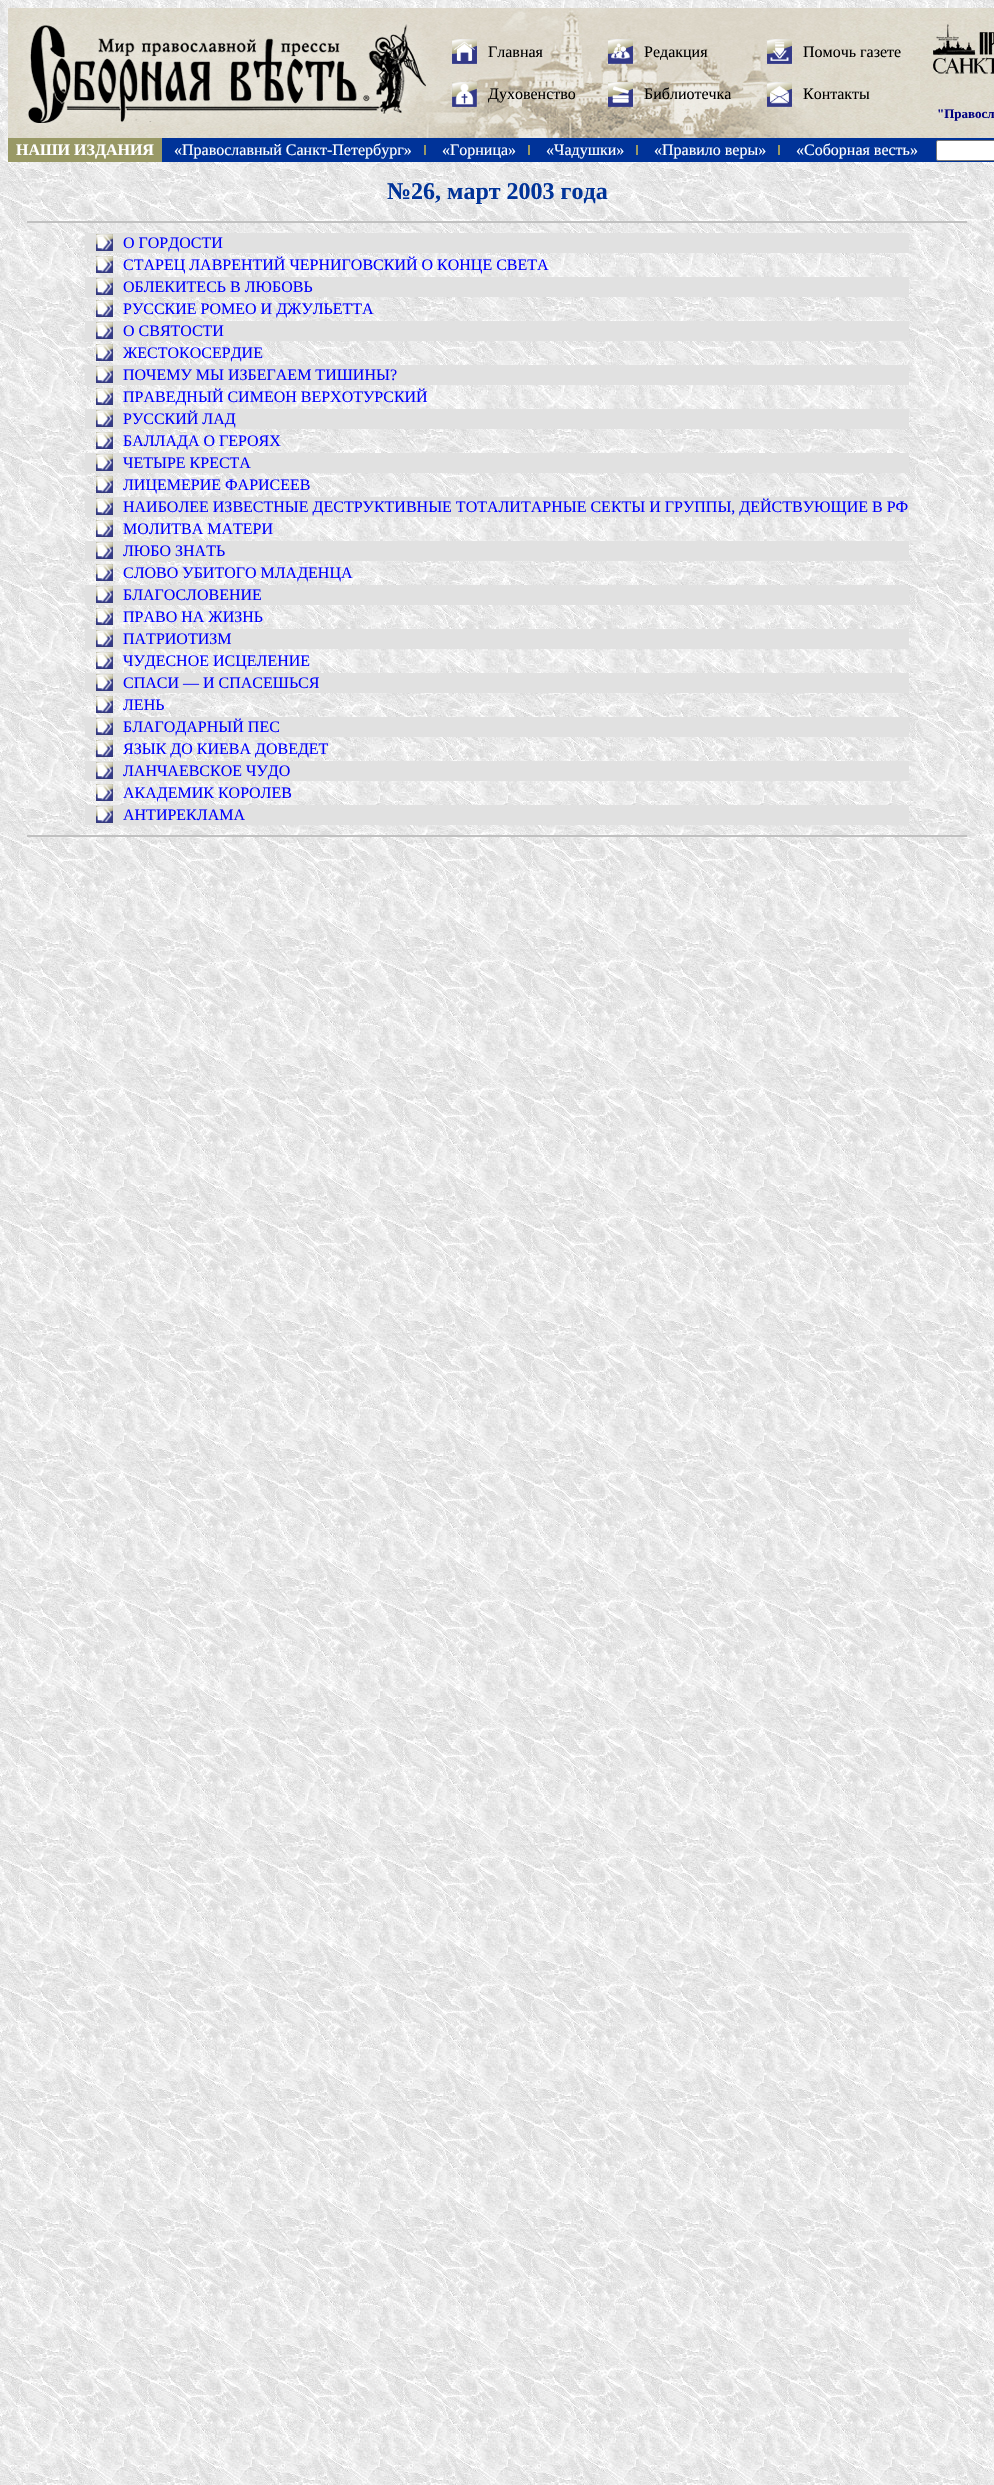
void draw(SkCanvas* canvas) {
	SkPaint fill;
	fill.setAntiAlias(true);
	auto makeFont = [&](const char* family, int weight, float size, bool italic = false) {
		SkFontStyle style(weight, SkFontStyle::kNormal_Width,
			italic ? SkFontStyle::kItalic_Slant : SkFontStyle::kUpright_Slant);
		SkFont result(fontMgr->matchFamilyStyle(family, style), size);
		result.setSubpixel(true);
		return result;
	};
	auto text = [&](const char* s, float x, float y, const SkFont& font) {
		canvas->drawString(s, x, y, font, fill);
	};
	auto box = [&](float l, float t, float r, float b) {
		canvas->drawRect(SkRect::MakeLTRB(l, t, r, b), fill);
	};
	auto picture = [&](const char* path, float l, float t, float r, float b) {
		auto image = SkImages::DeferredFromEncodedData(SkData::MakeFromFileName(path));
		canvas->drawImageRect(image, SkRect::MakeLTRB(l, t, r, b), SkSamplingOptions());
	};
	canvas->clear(0xFFFFFFFF);
	picture("image0.png", 0, 0, 994, 2485);
	picture("image1.png", 8, 8, 920, 138);
	picture("image2.png", 452, 39, 477, 64);
	picture("image3.png", 608, 39, 633, 64);
	picture("image4.png", 767, 39, 792, 64);
	picture("image5.png", 452, 82, 477, 107);
	picture("image6.png", 608, 82, 633, 107);
	picture("image7.png", 767, 82, 792, 107);
	picture("image8.png", 920, 8, 933, 138);
	picture("image9.png", 933, 8, 994, 138);
	picture("image10.png", 933, 24, 994, 74);
	fill.setColor(0xFF999966);
	box(8, 138, 162, 162);
	fill.setColor(0xFF003399);
	box(162, 138, 994, 162);
	fill.setColor(0xFF999967);
	box(424, 145, 426, 155);
	box(528, 145, 530, 155);
	box(636, 145, 638, 155);
	box(778, 145, 780, 155);
	fill.setColor(0xFFFFFFFF);
	canvas->drawRoundRect(SkRect::MakeLTRB(936.5f, 140.5f, 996.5f, 160.5f), 1.5f, 1.5f, fill);
	fill.setStyle(SkPaint::kStroke_Style);
	fill.setStrokeWidth(1);
	fill.setColor(0xFF767676);
	canvas->drawRoundRect(SkRect::MakeLTRB(936.5f, 140.5f, 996.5f, 160.5f), 1.5f, 1.5f, fill);
	fill.setStyle(SkPaint::kFill_Style);
	fill.setColor(0xFFC0C0C0);
	box(27, 221, 967, 223);
	fill.setColor(0xFFE1E1E1);
	box(85, 233, 909, 253);
	picture("image11.png", 96, 234, 113, 251);
	picture("image12.png", 96, 256, 113, 273);
	box(85, 277, 909, 297);
	picture("image13.png", 96, 278, 113, 295);
	picture("image14.png", 96, 300, 113, 317);
	box(85, 321, 909, 341);
	picture("image13.png", 96, 322, 113, 339);
	picture("image15.png", 96, 344, 113, 361);
	box(85, 365, 909, 385);
	picture("image13.png", 96, 366, 113, 383);
	picture("image16.png", 96, 388, 113, 405);
	box(85, 409, 909, 429);
	picture("image13.png", 96, 410, 113, 427);
	picture("image17.png", 96, 432, 113, 449);
	box(85, 453, 909, 473);
	picture("image13.png", 96, 454, 113, 471);
	picture("image18.png", 96, 476, 113, 493);
	box(85, 497, 909, 517);
	picture("image13.png", 96, 498, 113, 515);
	picture("image19.png", 96, 520, 113, 537);
	box(85, 541, 909, 561);
	picture("image13.png", 96, 542, 113, 559);
	picture("image20.png", 96, 564, 113, 581);
	box(85, 585, 909, 605);
	picture("image13.png", 96, 586, 113, 603);
	picture("image21.png", 96, 608, 113, 625);
	box(85, 629, 909, 649);
	picture("image13.png", 96, 630, 113, 647);
	picture("image22.png", 96, 652, 113, 669);
	box(85, 673, 909, 693);
	picture("image13.png", 96, 674, 113, 691);
	picture("image23.png", 96, 696, 113, 713);
	box(85, 717, 909, 737);
	picture("image13.png", 96, 718, 113, 735);
	picture("image24.png", 96, 740, 113, 757);
	box(85, 761, 909, 781);
	picture("image13.png", 96, 762, 113, 779);
	picture("image25.png", 96, 784, 113, 801);
	box(85, 805, 909, 825);
	picture("image13.png", 96, 806, 113, 823);
	fill.setColor(0xFFC0C0C0);
	box(27, 835, 967, 837);
	auto font1 = makeFont("Liberation Serif", 400, 16);
	fill.setColor(0xFF000000);
	text("Главная", 488, 57, font1);
	text("Редакция", 644, 57, font1);
	text("Помочь газете", 803, 57, font1);
	text("Духовенство", 488, 99, font1);
	text("Библиотечка", 644, 99, font1);
	text("Контакты", 803, 99, font1);
	auto font2 = makeFont("Liberation Serif", 700, 13);
	fill.setColor(0xFF000080);
	text("\"Правосл", 937, 118, font2);
	auto font3 = makeFont("Liberation Serif", 700, 16);
	fill.setColor(0xFFFFFFFF);
	text("НАШИ ИЗДАНИЯ", 16, 155, font3);
	text("«Православный Санкт-Петербург»", 174, 155, font1);
	text("«Горница»", 442, 155, font1);
	text("«Чадушки»", 546, 155, font1);
	text("«Правило веры»", 654, 155, font1);
	text("«Соборная весть»", 796, 155, font1);
	auto font4 = makeFont("Liberation Serif", 700, 24);
	fill.setColor(0xFF003399);
	text("№26, март 2003 года", 387, 199, font4);
	fill.setColor(0xFF0000FF);
	text("О ГОРДОСТИ", 123, 248, font1);
	text("СТАРЕЦ ЛАВРЕНТИЙ ЧЕРНИГОВСКИЙ О КОНЦЕ СВЕТА", 123, 270, font1);
	text("ОБЛЕКИТЕСЬ В ЛЮБОВЬ", 123, 292, font1);
	text("РУССКИЕ РОМЕО И ДЖУЛЬЕТТА", 123, 314, font1);
	text("О СВЯТОСТИ", 123, 336, font1);
	text("ЖЕСТОКОСЕРДИЕ", 123, 358, font1);
	text("ПОЧЕМУ МЫ ИЗБЕГАЕМ ТИШИНЫ?", 123, 380, font1);
	text("ПРАВЕДНЫЙ СИМЕОН ВЕРХОТУРСКИЙ", 123, 402, font1);
	text("РУССКИЙ ЛАД", 123, 424, font1);
	text("БАЛЛАДА О ГЕРОЯХ", 123, 446, font1);
	text("ЧЕТЫРЕ КРЕСТА", 123, 468, font1);
	text("ЛИЦЕМЕРИЕ ФАРИСЕЕВ", 123, 490, font1);
	text("НАИБОЛЕЕ ИЗВЕСТНЫЕ ДЕСТРУКТИВНЫЕ ТОТАЛИТАРНЫЕ СЕКТЫ И ГРУППЫ, ДЕЙСТВУЮЩИЕ В РФ", 123, 512, font1);
	text("МОЛИТВА МАТЕРИ", 123, 534, font1);
	text("ЛЮБО ЗНАТЬ", 123, 556, font1);
	text("СЛОВО УБИТОГО МЛАДЕНЦА", 123, 578, font1);
	text("БЛАГОСЛОВЕНИЕ", 123, 600, font1);
	text("ПРАВО НА ЖИЗНЬ", 123, 622, font1);
	text("ПАТРИОТИЗМ", 123, 644, font1);
	text("ЧУДЕСНОЕ ИСЦЕЛЕНИЕ", 123, 666, font1);
	text("СПАСИ — И СПАСЕШЬСЯ", 123, 688, font1);
	text("ЛЕНЬ", 123, 710, font1);
	text("БЛАГОДАРНЫЙ ПЕС", 123, 732, font1);
	text("ЯЗЫК ДО КИЕВА ДОВЕДЕТ", 123, 754, font1);
	text("ЛАНЧАЕВСКОЕ ЧУДО", 123, 776, font1);
	text("АКАДЕМИК КОРОЛЕВ", 123, 798, font1);
	text("АНТИРЕКЛАМА", 123, 820, font1);
}
